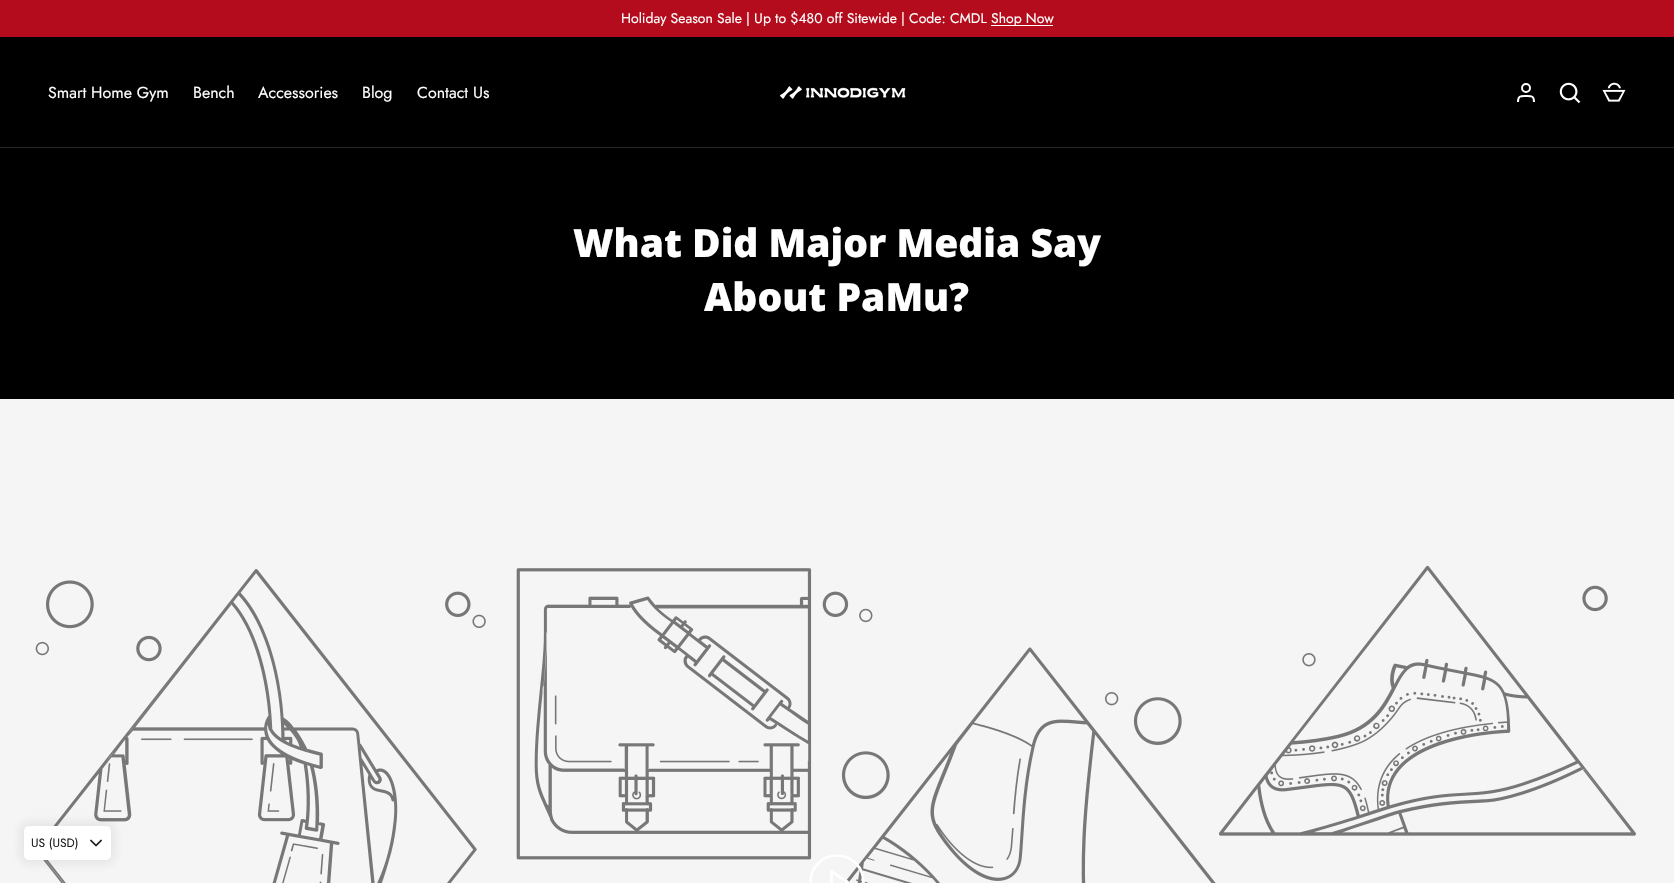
void draw(SkCanvas* canvas) {
	SkPaint fill;
	fill.setAntiAlias(true);
	auto makeFont = [&](const char* family, int weight, float size, bool italic = false) {
		SkFontStyle style(weight, SkFontStyle::kNormal_Width,
			italic ? SkFontStyle::kItalic_Slant : SkFontStyle::kUpright_Slant);
		SkFont result(fontMgr->matchFamilyStyle(family, style), size);
		result.setSubpixel(true);
		return result;
	};
	auto text = [&](const char* s, float x, float y, const SkFont& font) {
		canvas->drawString(s, x, y, font, fill);
	};
	auto box = [&](float l, float t, float r, float b) {
		canvas->drawRect(SkRect::MakeLTRB(l, t, r, b), fill);
	};
	auto roundBox = [&](float l, float t, float r, float b, float radius) {
		canvas->drawRoundRect(SkRect::MakeLTRB(l, t, r, b), radius, radius, fill);
	};
	auto picture = [&](const char* path, float l, float t, float r, float b) {
		auto image = SkImages::DeferredFromEncodedData(SkData::MakeFromFileName(path));
		canvas->drawImageRect(image, SkRect::MakeLTRB(l, t, r, b), SkSamplingOptions());
	};
	canvas->clear(0xFF000000);
	fill.setColor(0xFFB40C1C);
	box(0, 0, 1674, 37);
	fill.setColor(0xFFFFFFFF);
	box(991, 25, 1053, 26);
	picture("image0.png", 780, 86, 906, 99);
	fill.setStyle(SkPaint::kStroke_Style);
	fill.setStrokeWidth(2);
	canvas->drawCircle(1526, 88, 4, fill);
	canvas->drawPath(SkPathBuilder().moveTo(1534, 102).cubicTo(1534, 95.5f, 1531.5f, 96, 1526, 96).cubicTo(1520.5f, 96, 1518, 95.5f, 1518, 102).detach(), fill);
	picture("image1.png", 1559, 82, 1581, 104);
	picture("image2.png", 1602, 82, 1626, 102);
	fill.setStyle(SkPaint::kFill_Style);
	fill.setColor(0xFF262626);
	box(0, 147, 1674, 148);
	fill.setColor(0xFFF5F5F5);
	box(0, 399, 1674, 883);
	picture("image3.png", 35, 565, 1636, 883);
	fill.setStyle(SkPaint::kStroke_Style);
	fill.setStrokeWidth(2.7f);
	fill.setColor(0xFFFFFFFF);
	canvas->drawCircle(837, 882, 26.5f, fill);
	fill.setStrokeCap(SkPaint::kRound_Cap);
	fill.setStrokeJoin(SkPaint::kRound_Join);
	canvas->drawPath(SkPathBuilder().moveTo(831.5f, 871.5f).lineTo(847.5f, 882).lineTo(831.5f, 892.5f).close().detach(), fill);
	fill.setStyle(SkPaint::kFill_Style);
	fill.setColor(0x173C3C3C);
	fill.setMaskFilter(SkMaskFilter::MakeBlur(kNormal_SkBlurStyle, 5));
	canvas->drawRoundRect(SkRect::MakeLTRB(20, 822, 115, 864), 9, 9, fill);
	fill.setMaskFilter(nullptr);
	fill.setColor(0xFFFFFFFF);
	roundBox(24, 826, 111, 860, 5);
	picture("image4.png", 90, 839, 102, 847);
	auto font1 = makeFont("Jost", 400, 14);
	text("Holiday Season Sale | Up to $480 off Sitewide | Code: CMDL", 621, 23, font1);
	text("Shop Now", 991, 23, font1);
	auto font2 = makeFont("Jost", 400, 16);
	text("Smart Home Gym", 48, 98, font2);
	text("Bench", 193, 98, font2);
	text("Accessories", 258, 98, font2);
	text("Blog", 362, 98, font2);
	text("Contact Us", 417, 98, font2);
	auto font3 = makeFont("Open Sans", 800, 39);
	text("What Did Major Media Say", 573, 257, font3);
	text("About PaMu?", 704, 311, font3);
	auto font4 = makeFont("Jost", 400, 12);
	fill.setColor(0xFF212121);
	text("US (USD)", 31, 847, font4);
}
